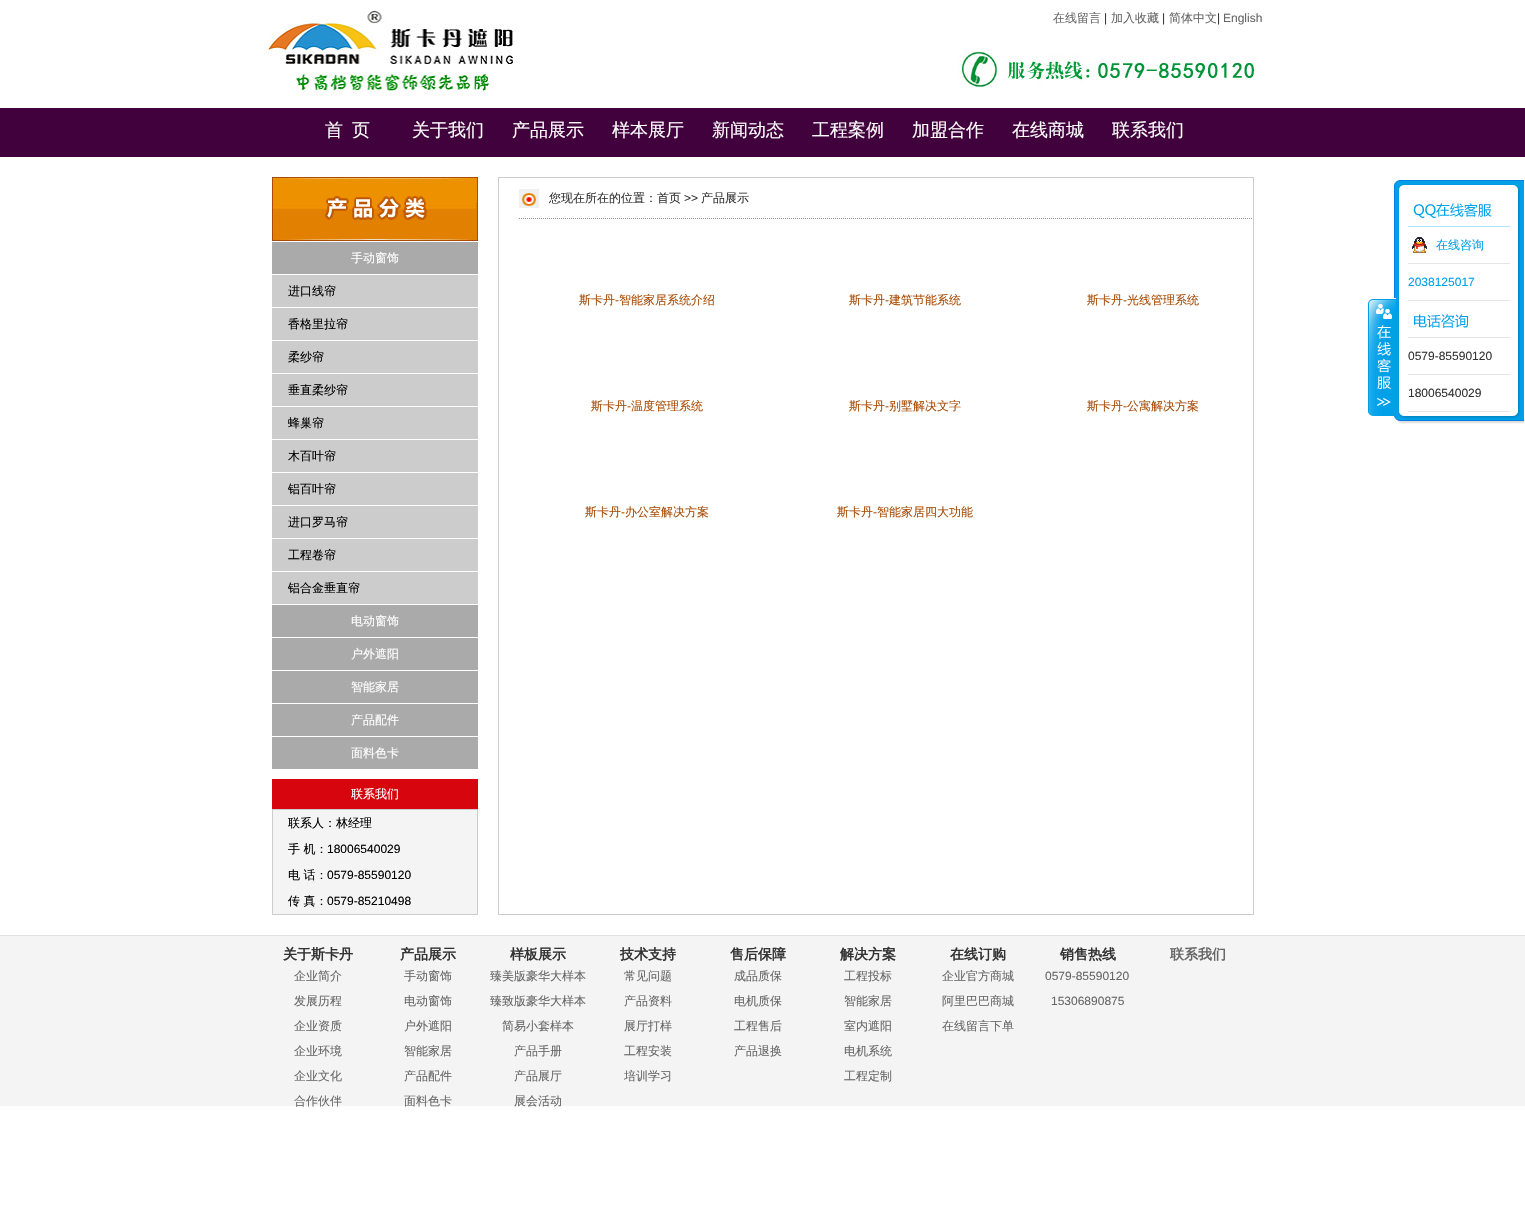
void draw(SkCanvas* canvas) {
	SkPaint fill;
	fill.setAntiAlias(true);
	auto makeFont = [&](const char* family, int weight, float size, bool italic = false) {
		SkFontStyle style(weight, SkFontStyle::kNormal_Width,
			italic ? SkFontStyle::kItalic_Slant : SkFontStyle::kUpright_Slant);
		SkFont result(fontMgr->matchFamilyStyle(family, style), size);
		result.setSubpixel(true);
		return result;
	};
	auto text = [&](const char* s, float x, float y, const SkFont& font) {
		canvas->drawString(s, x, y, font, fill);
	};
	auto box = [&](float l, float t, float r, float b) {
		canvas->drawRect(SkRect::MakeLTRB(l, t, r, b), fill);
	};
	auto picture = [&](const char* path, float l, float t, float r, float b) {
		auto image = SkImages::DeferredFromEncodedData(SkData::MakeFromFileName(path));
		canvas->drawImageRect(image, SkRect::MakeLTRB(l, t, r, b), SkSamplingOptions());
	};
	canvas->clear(0xFFFFFFFF);
	picture("image0.png", 263, 10, 513, 96);
	picture("image1.png", 957, 47, 1259, 87);
	fill.setColor(0xFF41013D);
	box(0, 108, 1525, 157);
	picture("image2.png", 272, 177, 478, 241);
	fill.setColor(0xFFAAAAAA);
	box(272, 242, 478, 274);
	fill.setColor(0xFFCCCCCC);
	box(272, 275, 478, 307);
	box(272, 308, 478, 340);
	box(272, 341, 478, 373);
	box(272, 374, 478, 406);
	box(272, 407, 478, 439);
	box(272, 440, 478, 472);
	box(272, 473, 478, 505);
	box(272, 506, 478, 538);
	box(272, 539, 478, 571);
	box(272, 572, 478, 604);
	fill.setColor(0xFFAAAAAA);
	box(272, 605, 478, 637);
	box(272, 638, 478, 670);
	box(272, 671, 478, 703);
	box(272, 704, 478, 736);
	box(272, 737, 478, 769);
	fill.setColor(0xFFD7060E);
	box(272, 779, 478, 809);
	fill.setColor(0xFFF4F4F4);
	canvas->drawRect(SkRect::MakeLTRB(272.5f, 809.5f, 477.5f, 914.5f), fill);
	fill.setStyle(SkPaint::kStroke_Style);
	fill.setStrokeWidth(1);
	fill.setColor(0xFFCCCCCC);
	canvas->drawRect(SkRect::MakeLTRB(272.5f, 809.5f, 477.5f, 914.5f), fill);
	canvas->drawRect(SkRect::MakeLTRB(498.5f, 177.5f, 1253.5f, 914.5f), fill);
	picture("image3.png", 519, 189, 539, 208);
	fill.setColor(0xFF999999);
	fill.setPathEffect(SkDashPathEffect::Make({{1, 1}}, 0));
	canvas->drawPath(SkPathBuilder().moveTo(519, 218.5f).lineTo(1253, 218.5f).detach(), fill);
	fill.setPathEffect(nullptr);
	picture("image5.png", 1394, 412, 1524, 424);
	picture("image7.png", 1394, 190, 1524, 412);
	picture("image4.png", 1368, 298, 1396, 416);
	picture("image6.png", 1394, 180, 1524, 190);
	fill.setStyle(SkPaint::kFill_Style);
	fill.setColor(0xFFACE5F9);
	box(1408, 226, 1510, 227);
	picture("image8.png", 1413, 203, 1492, 218);
	fill.setColor(0xFFE6E5E4);
	box(1408, 263, 1510, 264);
	picture("image9.png", 1412, 237, 1427, 253);
	box(1408, 300, 1510, 301);
	box(1408, 337, 1510, 338);
	picture("image10.png", 1414, 314, 1469, 328);
	box(1408, 374, 1510, 375);
	box(1408, 411, 1510, 412);
	fill.setColor(0xFFF4F4F4);
	box(0, 936, 1525, 1106);
	fill.setColor(0xFFE0E0E0);
	box(0, 935, 1525, 936);
	auto font1 = makeFont("WenQuanYi Zen Hei", 500, 12);
	fill.setColor(0xFF666666);
	text("在线留言", 1053, 22, font1);
	auto font2 = makeFont("Liberation Sans", 400, 12);
	fill.setColor(0xFF333333);
	text("|", 1104, 22, font2);
	fill.setColor(0xFF666666);
	text("加入收藏", 1111, 22, font1);
	fill.setColor(0xFF333333);
	text("|", 1162, 22, font2);
	fill.setColor(0xFF666666);
	text("简体中文", 1169, 22, font1);
	fill.setColor(0xFF333333);
	text("|", 1217, 22, font2);
	fill.setColor(0xFF666666);
	text("English", 1223, 22, font2);
	auto font3 = makeFont("WenQuanYi Zen Hei", 500, 18);
	fill.setColor(0xFFFFFFFF);
	text("首", 325, 136, font3);
	text("页", 352, 136, font3);
	text("关于我们", 412, 136, font3);
	text("产品展示", 512, 136, font3);
	text("样本展厅", 612, 136, font3);
	text("新闻动态", 712, 136, font3);
	text("工程案例", 812, 136, font3);
	text("加盟合作", 912, 136, font3);
	text("在线商城", 1012, 136, font3);
	text("联系我们", 1112, 136, font3);
	text("手动窗饰", 351, 262, font1);
	fill.setColor(0xFF000000);
	text("进口线帘", 288, 295, font1);
	text("香格里拉帘", 288, 328, font1);
	text("柔纱帘", 288, 361, font1);
	text("垂直柔纱帘", 288, 394, font1);
	text("蜂巢帘", 288, 427, font1);
	text("木百叶帘", 288, 460, font1);
	text("铝百叶帘", 288, 493, font1);
	text("进口罗马帘", 288, 526, font1);
	text("工程卷帘", 288, 559, font1);
	text("铝合金垂直帘", 288, 592, font1);
	fill.setColor(0xFFFFFFFF);
	text("电动窗饰", 351, 625, font1);
	text("户外遮阳", 351, 658, font1);
	text("智能家居", 351, 691, font1);
	text("产品配件", 351, 724, font1);
	text("面料色卡", 351, 757, font1);
	text("联系我们", 351, 798, font1);
	fill.setColor(0xFF000000);
	text("联系人：林经理", 288, 827, font1);
	text("手 机：", 288, 853, font1);
	text("18006540029", 327, 853, font2);
	text("电 话：", 288, 879, font1);
	text("0579-85590120", 327, 879, font2);
	text("传 真：", 288, 905, font1);
	text("0579-85210498", 327, 905, font2);
	fill.setColor(0xFF333333);
	text("您现在所在的位置：首页", 549, 202, font1);
	text(">>", 684, 202, font2);
	text("产品展示", 701, 202, font1);
	fill.setColor(0xFFA94C06);
	text("斯卡丹", 579, 304, font1);
	text("-", 615, 304, font2);
	text("智能家居系统介绍", 619, 304, font1);
	text("斯卡丹", 849, 304, font1);
	text("-", 885, 304, font2);
	text("建筑节能系统", 889, 304, font1);
	text("斯卡丹", 1087, 304, font1);
	text("-", 1123, 304, font2);
	text("光线管理系统", 1127, 304, font1);
	text("斯卡丹", 591, 410, font1);
	text("-", 627, 410, font2);
	text("温度管理系统", 631, 410, font1);
	text("斯卡丹", 849, 410, font1);
	text("-", 885, 410, font2);
	text("别墅解决文字", 889, 410, font1);
	text("斯卡丹", 1087, 410, font1);
	text("-", 1123, 410, font2);
	text("公寓解决方案", 1127, 410, font1);
	text("斯卡丹", 585, 516, font1);
	text("-", 621, 516, font2);
	text("办公室解决方案", 625, 516, font1);
	text("斯卡丹", 837, 516, font1);
	text("-", 873, 516, font2);
	text("智能家居四大功能", 877, 516, font1);
	fill.setColor(0xFF00A0E9);
	text("在线咨询", 1436, 249, font1);
	text("2038125017", 1408, 286, font2);
	fill.setColor(0xFF333333);
	text("0579-85590120", 1408, 360, font2);
	text("18006540029", 1408, 397, font2);
	auto font4 = makeFont("WenQuanYi Zen Hei", 700, 14);
	text("关于斯卡丹", 283, 959, font4);
	fill.setColor(0xFF666666);
	text("企业简介", 294, 980, font1);
	text("发展历程", 294, 1005, font1);
	text("企业资质", 294, 1030, font1);
	text("企业环境", 294, 1055, font1);
	text("企业文化", 294, 1080, font1);
	text("合作伙伴", 294, 1105, font1);
	fill.setColor(0xFF333333);
	text("产品展示", 400, 959, font4);
	fill.setColor(0xFF666666);
	text("手动窗饰", 404, 980, font1);
	text("电动窗饰", 404, 1005, font1);
	text("户外遮阳", 404, 1030, font1);
	text("智能家居", 404, 1055, font1);
	text("产品配件", 404, 1080, font1);
	text("面料色卡", 404, 1105, font1);
	fill.setColor(0xFF333333);
	text("样板展示", 510, 959, font4);
	fill.setColor(0xFF666666);
	text("臻美版豪华大样本", 490, 980, font1);
	text("臻致版豪华大样本", 490, 1005, font1);
	text("简易小套样本", 502, 1030, font1);
	text("产品手册", 514, 1055, font1);
	text("产品展厅", 514, 1080, font1);
	text("展会活动", 514, 1105, font1);
	fill.setColor(0xFF333333);
	text("技术支持", 620, 959, font4);
	fill.setColor(0xFF666666);
	text("常见问题", 624, 980, font1);
	text("产品资料", 624, 1005, font1);
	text("展厅打样", 624, 1030, font1);
	text("工程安装", 624, 1055, font1);
	text("培训学习", 624, 1080, font1);
	fill.setColor(0xFF333333);
	text("售后保障", 730, 959, font4);
	fill.setColor(0xFF666666);
	text("成品质保", 734, 980, font1);
	text("电机质保", 734, 1005, font1);
	text("工程售后", 734, 1030, font1);
	text("产品退换", 734, 1055, font1);
	fill.setColor(0xFF333333);
	text("解决方案", 840, 959, font4);
	fill.setColor(0xFF666666);
	text("工程投标", 844, 980, font1);
	text("智能家居", 844, 1005, font1);
	text("室内遮阳", 844, 1030, font1);
	text("电机系统", 844, 1055, font1);
	text("工程定制", 844, 1080, font1);
	fill.setColor(0xFF333333);
	text("在线订购", 950, 959, font4);
	fill.setColor(0xFF666666);
	text("企业官方商城", 942, 980, font1);
	text("阿里巴巴商城", 942, 1005, font1);
	text("在线留言下单", 942, 1030, font1);
	fill.setColor(0xFF333333);
	text("销售热线", 1060, 959, font4);
	fill.setColor(0xFF666666);
	text("0579-85590120", 1045, 980, font2);
	text("15306890875", 1051, 1005, font2);
	text("联系我们", 1170, 959, font4);
}
